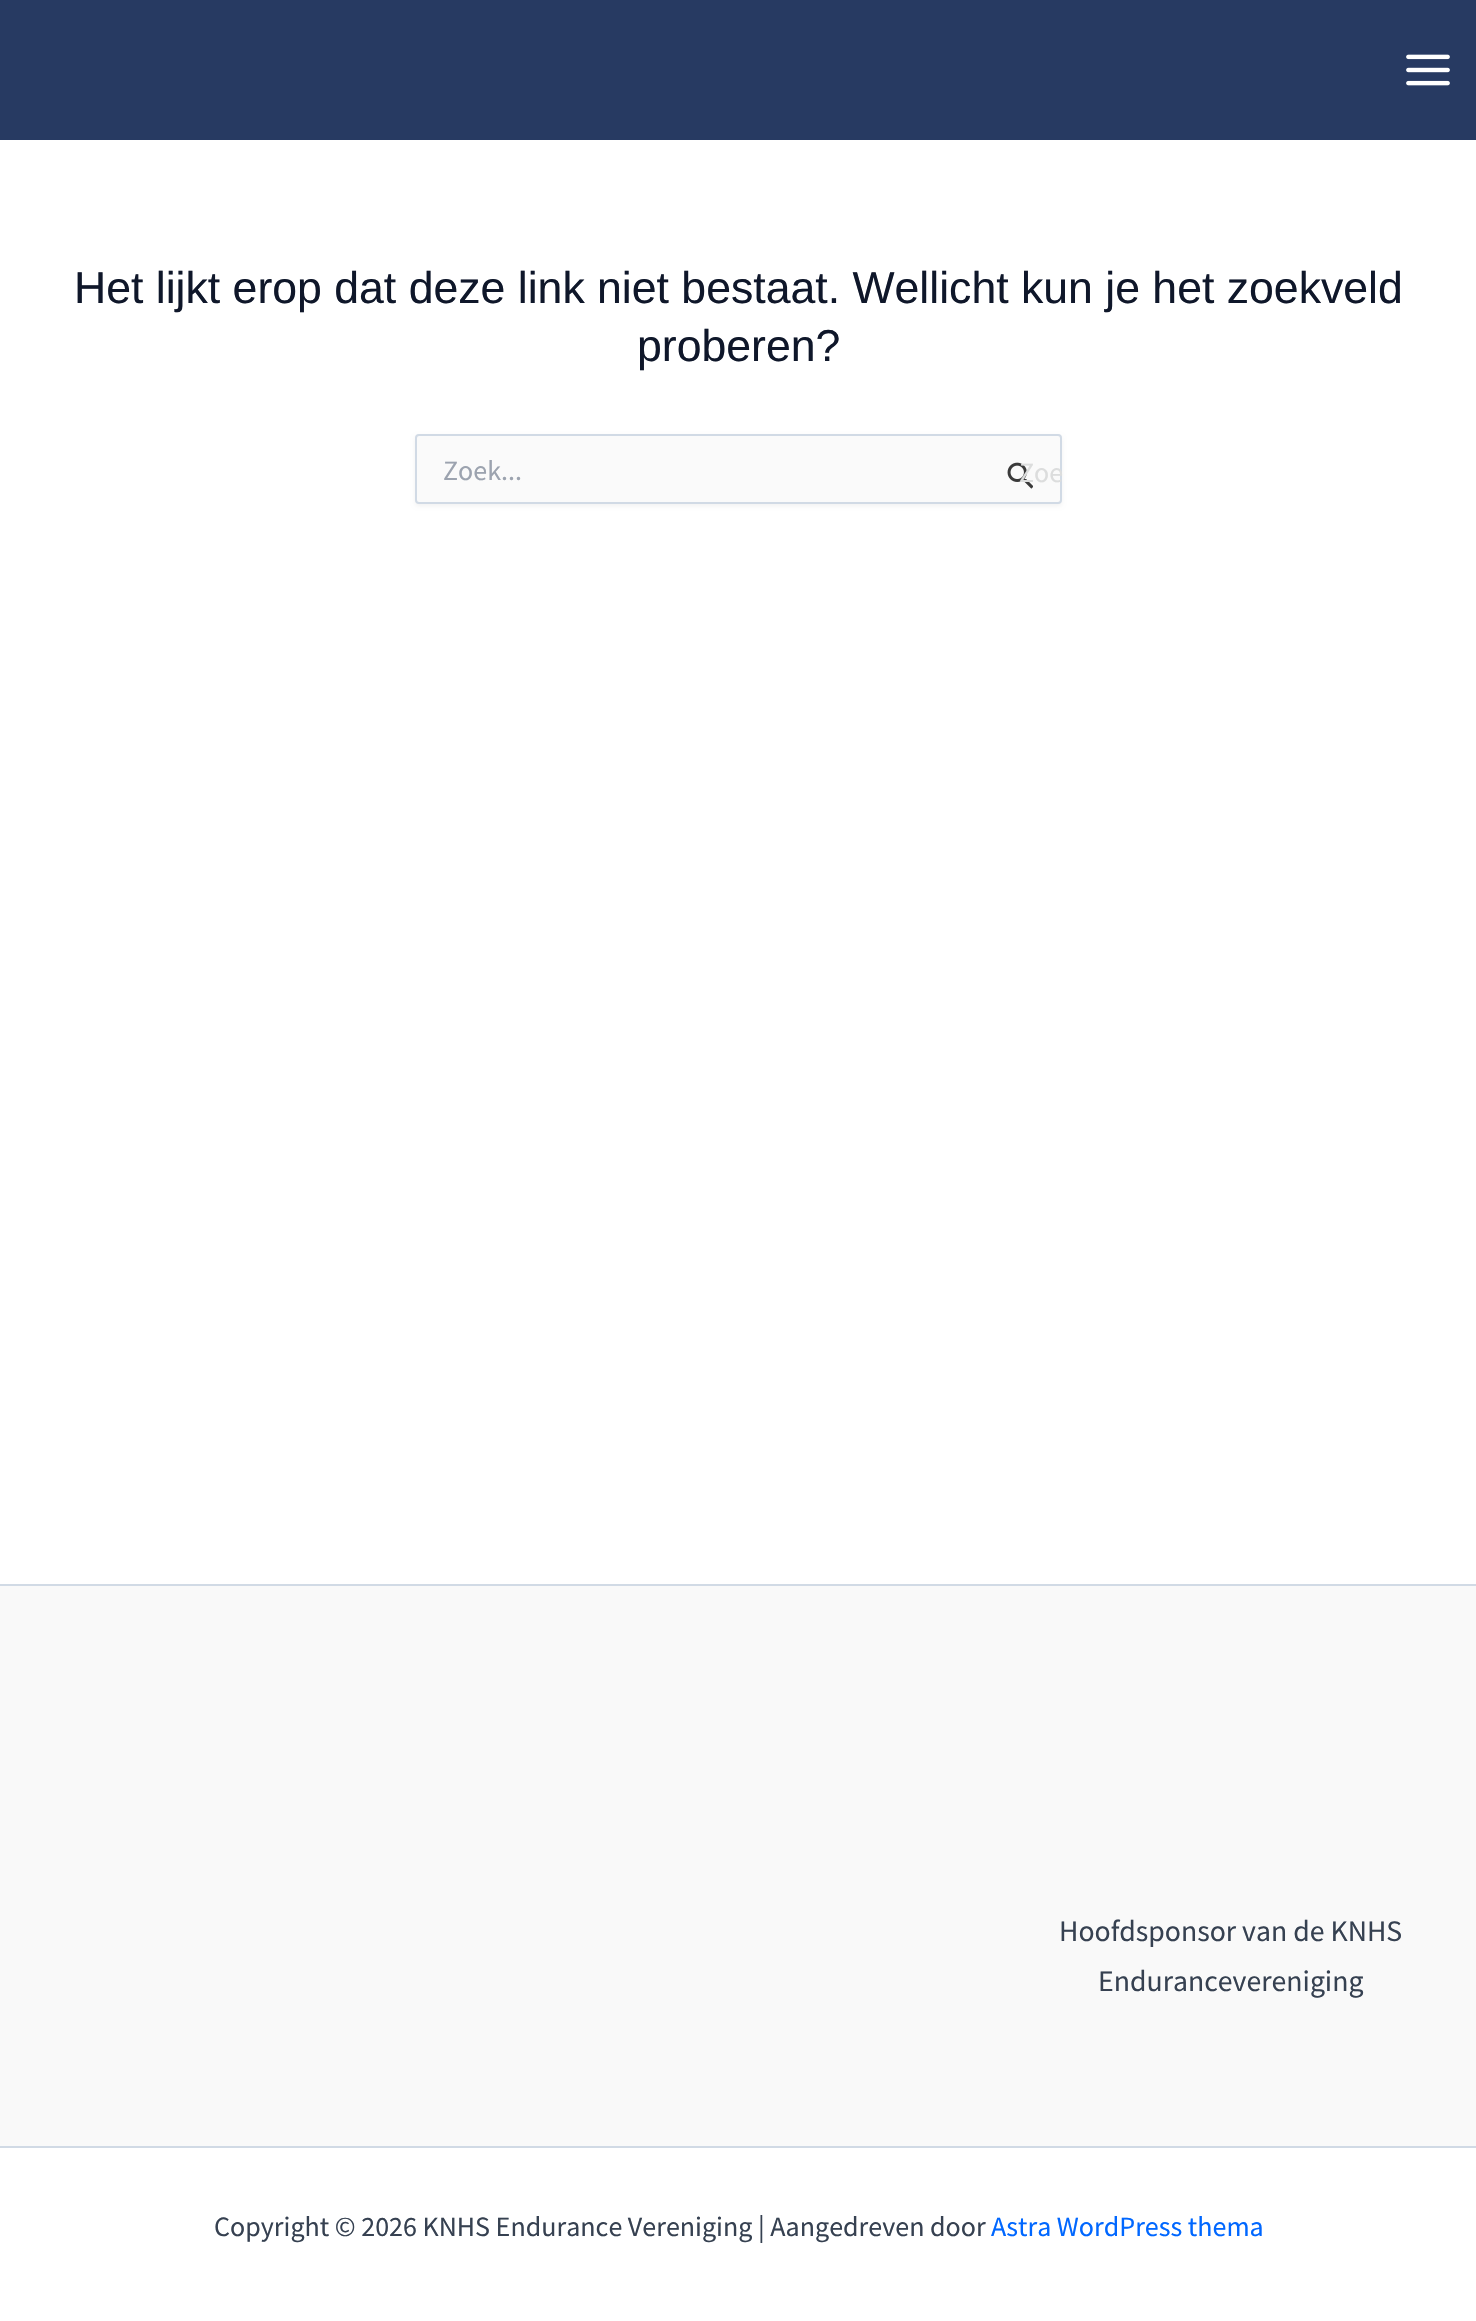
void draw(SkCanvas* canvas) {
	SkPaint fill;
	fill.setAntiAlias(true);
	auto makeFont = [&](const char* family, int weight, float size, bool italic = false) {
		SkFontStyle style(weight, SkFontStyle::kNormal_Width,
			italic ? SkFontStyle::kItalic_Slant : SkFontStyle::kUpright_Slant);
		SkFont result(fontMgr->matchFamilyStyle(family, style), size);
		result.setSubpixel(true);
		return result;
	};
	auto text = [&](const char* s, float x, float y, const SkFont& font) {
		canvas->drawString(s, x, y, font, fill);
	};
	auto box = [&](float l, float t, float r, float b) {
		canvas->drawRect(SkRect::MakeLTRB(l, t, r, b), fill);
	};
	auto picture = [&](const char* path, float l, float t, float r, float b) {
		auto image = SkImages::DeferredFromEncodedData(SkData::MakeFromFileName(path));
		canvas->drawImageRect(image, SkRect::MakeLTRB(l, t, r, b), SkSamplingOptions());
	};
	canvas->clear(0xFFFFFFFF);
	fill.setColor(0xFF273A62);
	box(0, 0, 1476, 140);
	picture("image0.png", 1406, 54, 1450, 86);
	fill.setColor(0x0D000000);
	fill.setMaskFilter(SkMaskFilter::MakeBlur(kNormal_SkBlurStyle, 2));
	canvas->drawRoundRect(SkRect::MakeLTRB(415, 436, 1062, 506), 4, 4, fill);
	fill.setMaskFilter(nullptr);
	fill.setColor(0xFFFAFAFA);
	canvas->drawRoundRect(SkRect::MakeLTRB(416, 435, 1061, 503), 3, 3, fill);
	fill.setStyle(SkPaint::kStroke_Style);
	fill.setStrokeWidth(2);
	fill.setColor(0xFFD1DAE5);
	canvas->drawRoundRect(SkRect::MakeLTRB(416, 435, 1061, 503), 3, 3, fill);
	picture("image1.png", 1007, 462, 1033, 489);
	fill.setStyle(SkPaint::kFill_Style);
	fill.setColor(0xFFF9F9F9);
	box(0, 1586, 1476, 2146);
	fill.setColor(0xFFD1DAE5);
	box(0, 1584, 1476, 1586);
	box(0, 2146, 1476, 2148);
	auto font1 = makeFont("Liberation Sans", 400, 44.6f);
	fill.setColor(0xFF0F172A);
	text("Het lijkt erop dat deze link niet bestaat. Wellicht kun je het zoekveld", 74, 303, font1);
	text("proberen?", 637, 361, font1);
	auto font2 = makeFont("Source Sans Pro", 400, 28);
	fill.setColor(0xFF9CA3AF);
	text("Zoek...", 443, 480, font2);
	fill.setColor(0xFFDCDDDD);
	text("Zoe", 1019, 482, font2);
	auto font3 = makeFont("Source Sans Pro", 400, 29.75f);
	fill.setColor(0xFF364151);
	text("Hoofdsponsor van de KNHS", 1059, 1941, font3);
	text("Endurancevereniging", 1098, 1991, font3);
	text("Copyright © 2026 KNHS Endurance Vereniging | Aangedreven door", 214, 2236, font2);
	fill.setColor(0xFF0067FF);
	text("Astra WordPress thema", 991, 2236, font2);
}
